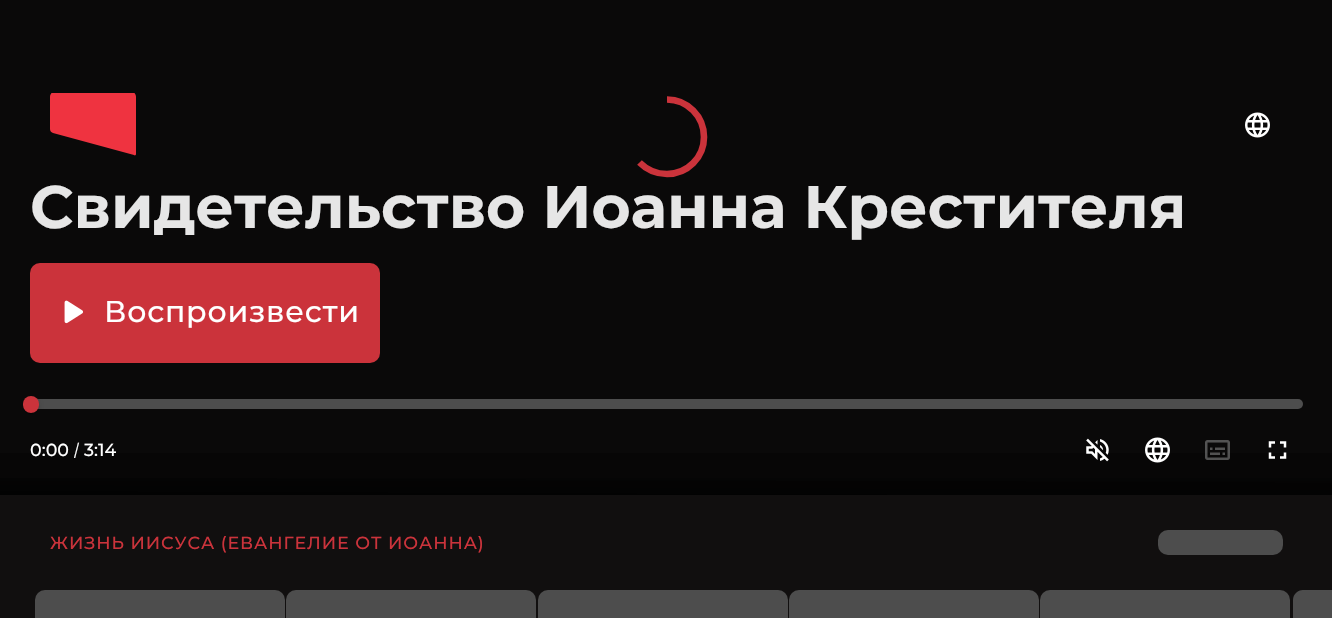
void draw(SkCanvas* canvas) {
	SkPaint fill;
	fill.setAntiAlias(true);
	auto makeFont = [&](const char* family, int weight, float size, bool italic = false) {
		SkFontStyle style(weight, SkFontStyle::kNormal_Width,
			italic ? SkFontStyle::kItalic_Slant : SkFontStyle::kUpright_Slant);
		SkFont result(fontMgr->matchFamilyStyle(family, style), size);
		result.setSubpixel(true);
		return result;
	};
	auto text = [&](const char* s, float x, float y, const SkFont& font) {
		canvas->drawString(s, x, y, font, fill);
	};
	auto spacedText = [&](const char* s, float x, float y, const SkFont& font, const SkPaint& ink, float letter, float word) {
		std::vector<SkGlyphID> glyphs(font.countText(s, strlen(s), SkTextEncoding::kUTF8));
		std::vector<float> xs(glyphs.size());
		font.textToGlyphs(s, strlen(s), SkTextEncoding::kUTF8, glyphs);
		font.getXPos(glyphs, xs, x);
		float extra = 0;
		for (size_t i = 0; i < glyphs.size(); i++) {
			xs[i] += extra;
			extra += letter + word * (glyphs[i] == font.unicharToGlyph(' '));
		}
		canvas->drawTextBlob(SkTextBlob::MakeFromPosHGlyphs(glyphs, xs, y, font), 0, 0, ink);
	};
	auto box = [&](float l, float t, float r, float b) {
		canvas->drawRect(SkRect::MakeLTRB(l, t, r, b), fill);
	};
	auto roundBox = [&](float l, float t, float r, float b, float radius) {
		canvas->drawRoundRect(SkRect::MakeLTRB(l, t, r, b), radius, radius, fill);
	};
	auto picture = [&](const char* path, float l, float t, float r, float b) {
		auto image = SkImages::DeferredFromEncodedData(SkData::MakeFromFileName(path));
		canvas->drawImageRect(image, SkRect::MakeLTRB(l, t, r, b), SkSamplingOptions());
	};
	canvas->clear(0xFF0A0909);
	canvas->save();
	canvas->clipRect(SkRect::MakeLTRB(50, 93, 138, 158));
	fill.setColor(0xFFEF3340);
	canvas->drawPath(SkPathBuilder(SkPathFillType::kEvenOdd).moveTo(132, 92).lineTo(54, 92).cubicTo(52, 92, 50, 94, 50, 97).lineTo(50, 129).cubicTo(50, 131, 51, 132, 53, 133).lineTo(134, 155).cubicTo(135, 156, 136, 155, 136, 154).lineTo(136, 97).cubicTo(136, 94, 134, 92, 132, 92).close().detach(), fill);
	canvas->restore();
	picture("image0.png", 1245, 112, 1270, 138);
	fill.setStyle(SkPaint::kStroke_Style);
	fill.setStrokeWidth(6.6f);
	fill.setColor(0xFFCB333B);
	canvas->drawPath(SkPathBuilder().moveTo(667, 99.5f).cubicTo(687.5f, 99.5f, 704, 116.5f, 704, 137).cubicTo(704, 157.5f, 687.5f, 174, 667, 174).cubicTo(656, 174, 646.5f, 169.5f, 639.5f, 162.5f).detach(), fill);
	fill.setStyle(SkPaint::kFill_Style);
	roundBox(30, 263, 380, 363, 10);
	picture("image1.png", 64, 300, 83, 324);
	{
		const SkColor colors[] = {0xFF0A0909, 0xFF060505};
		const float stops[] = {0, 1};
		const SkPoint ends[] = {{666, 382}, {666, 495}};
		fill.setShader(SkGradientShader::MakeLinear(ends, colors, stops, 2, SkTileMode::kClamp));
		fill.setAlpha(255);
	}
	box(0, 453, 1332, 495);
	fill.setShader(nullptr);
	fill.setColor(0xFF4D4D4D);
	roundBox(30, 399, 1303, 409, 5);
	fill.setColor(0xFFCB333B);
	roundBox(23, 396, 39, 413, 8);
	canvas->save();
	canvas->clipPath(SkPathBuilder(SkPathFillType::kEvenOdd).moveTo(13, 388).lineTo(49, 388).lineTo(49, 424).lineTo(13, 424).close().moveTo(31, 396).cubicTo(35.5f, 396, 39, 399.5f, 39, 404).lineTo(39, 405).cubicTo(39, 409.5f, 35.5f, 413, 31, 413).cubicTo(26.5f, 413, 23, 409.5f, 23, 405).lineTo(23, 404).cubicTo(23, 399.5f, 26.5f, 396, 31, 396).close().detach(), true);
	fill.setColor(0x1F000000);
	fill.setMaskFilter(SkMaskFilter::MakeBlur(kNormal_SkBlurStyle, 3));
	canvas->drawRoundRect(SkRect::MakeLTRB(23, 398, 39, 414), 8, 8, fill);
	fill.setMaskFilter(nullptr);
	canvas->restore();
	canvas->save();
	canvas->clipPath(SkPathBuilder(SkPathFillType::kEvenOdd).moveTo(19, 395).lineTo(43, 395).lineTo(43, 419).lineTo(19, 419).close().moveTo(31, 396).cubicTo(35.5f, 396, 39, 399.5f, 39, 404).lineTo(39, 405).cubicTo(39, 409.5f, 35.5f, 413, 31, 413).cubicTo(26.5f, 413, 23, 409.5f, 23, 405).lineTo(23, 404).cubicTo(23, 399.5f, 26.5f, 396, 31, 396).close().detach(), true);
	fill.setColor(0x24000000);
	fill.setMaskFilter(SkMaskFilter::MakeBlur(kNormal_SkBlurStyle, 1));
	canvas->drawRoundRect(SkRect::MakeLTRB(23, 399, 39, 415), 8, 8, fill);
	fill.setMaskFilter(nullptr);
	canvas->restore();
	canvas->save();
	canvas->clipPath(SkPathBuilder(SkPathFillType::kEvenOdd).moveTo(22, 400).lineTo(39, 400).lineTo(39, 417).lineTo(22, 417).close().moveTo(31, 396).cubicTo(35.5f, 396, 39, 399.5f, 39, 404).lineTo(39, 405).cubicTo(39, 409.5f, 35.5f, 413, 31, 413).cubicTo(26.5f, 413, 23, 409.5f, 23, 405).lineTo(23, 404).cubicTo(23, 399.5f, 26.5f, 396, 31, 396).close().detach(), true);
	fill.setColor(0x33000000);
	fill.setMaskFilter(SkMaskFilter::MakeBlur(kNormal_SkBlurStyle, 0.5f));
	canvas->drawRoundRect(SkRect::MakeLTRB(25, 403, 36, 414), 5.5f, 5.5f, fill);
	fill.setMaskFilter(nullptr);
	canvas->restore();
	picture("image2.png", 1086, 438, 1109, 462);
	picture("image3.png", 1145, 437, 1170, 463);
	picture("image4.png", 1205, 440, 1230, 460);
	picture("image5.png", 1268, 441, 1287, 459);
	{
		const SkColor colors[] = {0x00131313, 0x2E131313, 0x520E0E0E, 0xB3000000};
		const float stops[] = {0.53f, 0.69f, 0.81f, 1};
		const SkPoint ends[] = {{667, -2.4f}, {665, 497}};
		fill.setShader(SkGradientShader::MakeLinear(ends, colors, stops, 4, SkTileMode::kClamp));
		fill.setAlpha(255);
	}
	box(0, 478, 1332, 495);
	fill.setShader(nullptr);
	fill.setColor(0xFF110F0F);
	box(0, 495, 1332, 618);
	fill.setColor(0xFF4D4D4D);
	roundBox(1158, 530, 1283, 555, 10);
	roundBox(35, 590, 285, 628, 10);
	roundBox(286, 590, 536, 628, 10);
	roundBox(538, 590, 788, 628, 10);
	roundBox(789, 590, 1039, 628, 10);
	roundBox(1040, 590, 1290, 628, 10);
	canvas->drawPath(SkPathBuilder().moveTo(1303, 590).lineTo(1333, 590).lineTo(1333, 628).lineTo(1303, 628).cubicTo(1297.5f, 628, 1293, 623.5f, 1293, 618).lineTo(1293, 600).cubicTo(1293, 594.5f, 1297.5f, 590, 1303, 590).close().detach(), fill);
	auto font1 = makeFont("Montserrat", 700, 60);
	fill.setColor(0xFFE6E6E6);
	text("Свидетельство Иоанна Крестителя", 30, 228, font1);
	auto font2 = makeFont("Montserrat", 500, 30);
	fill.setColor(0xFFFFFFFF);
	spacedText("Воспроизвести", 104, 322, font2, fill, 0.75f, 0);
	auto font3 = makeFont("Montserrat", 500, 17.5f);
	text("0:00", 30, 456, font3);
	auto font4 = makeFont("Noto Serif", 500, 17.5f);
	text("/", 74, 456, font4);
	text("3:14", 84, 456, font3);
	fill.setColor(0xFFCB333B);
	spacedText("ЖИЗНЬ ИИСУСА (ЕВАНГЕЛИЕ ОТ ИОАННА)", 50, 549, font3, fill, 0.9f, 0);
}
